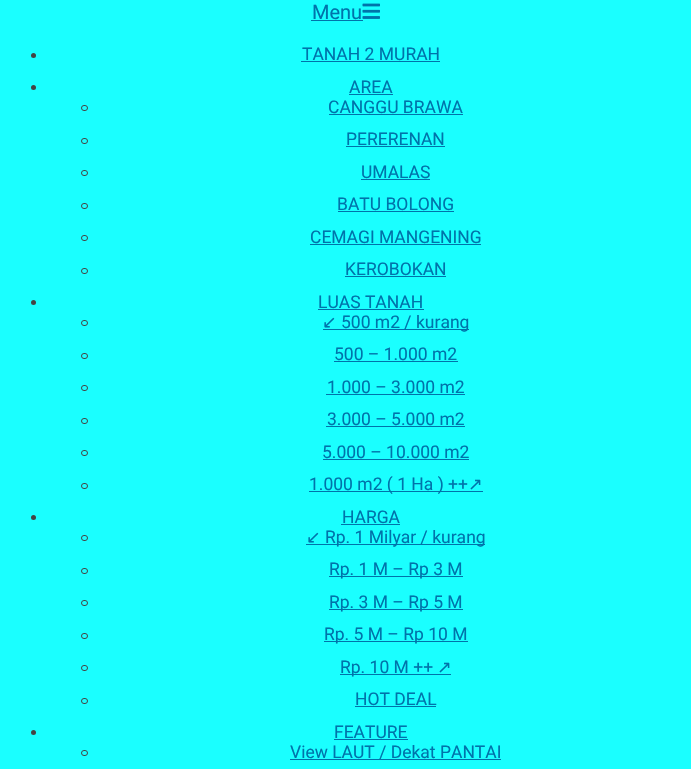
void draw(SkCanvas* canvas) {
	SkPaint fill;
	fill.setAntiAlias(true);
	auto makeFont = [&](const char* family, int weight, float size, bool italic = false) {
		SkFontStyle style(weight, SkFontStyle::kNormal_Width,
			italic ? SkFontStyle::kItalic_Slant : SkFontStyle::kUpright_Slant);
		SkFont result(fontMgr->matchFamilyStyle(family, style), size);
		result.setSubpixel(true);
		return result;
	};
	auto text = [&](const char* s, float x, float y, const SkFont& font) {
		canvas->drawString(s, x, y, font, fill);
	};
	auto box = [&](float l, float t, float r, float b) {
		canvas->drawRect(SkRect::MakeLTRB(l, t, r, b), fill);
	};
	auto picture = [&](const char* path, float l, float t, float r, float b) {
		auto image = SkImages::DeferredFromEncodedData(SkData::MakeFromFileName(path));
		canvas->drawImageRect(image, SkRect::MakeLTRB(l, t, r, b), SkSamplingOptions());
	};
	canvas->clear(0xFF1AFFFF);
	fill.setColor(0xFF0073AA);
	box(311, 20, 363, 21);
	picture("image0.png", 362, 3, 380, 19);
	fill.setColor(0xFF444444);
	canvas->drawCircle(33.5f, 55.5f, 2.5f, fill);
	fill.setColor(0xFF0073AA);
	box(301, 61, 440, 62);
	fill.setColor(0xFF444444);
	canvas->drawCircle(33.5f, 87.5f, 2.5f, fill);
	fill.setColor(0xFF0073AA);
	box(349, 94, 393, 95);
	fill.setStyle(SkPaint::kStroke_Style);
	fill.setStrokeWidth(1);
	fill.setColor(0xFF444444);
	canvas->drawRoundRect(SkRect::MakeLTRB(81.5f, 105.5f, 87.5f, 110.5f), 2.5f, 2.5f, fill);
	fill.setStyle(SkPaint::kFill_Style);
	fill.setColor(0xFF0073AA);
	box(329, 114, 463, 115);
	fill.setStyle(SkPaint::kStroke_Style);
	fill.setColor(0xFF444444);
	canvas->drawRoundRect(SkRect::MakeLTRB(81.5f, 138.5f, 87.5f, 143.5f), 2.5f, 2.5f, fill);
	fill.setStyle(SkPaint::kFill_Style);
	fill.setColor(0xFF0073AA);
	box(346, 146, 445, 147);
	fill.setStyle(SkPaint::kStroke_Style);
	fill.setColor(0xFF444444);
	canvas->drawRoundRect(SkRect::MakeLTRB(81.5f, 170.5f, 87.5f, 175.5f), 2.5f, 2.5f, fill);
	fill.setStyle(SkPaint::kFill_Style);
	fill.setColor(0xFF0073AA);
	box(361, 179, 430, 180);
	fill.setStyle(SkPaint::kStroke_Style);
	fill.setColor(0xFF444444);
	canvas->drawRoundRect(SkRect::MakeLTRB(81.5f, 203.5f, 87.5f, 208.5f), 2.5f, 2.5f, fill);
	fill.setStyle(SkPaint::kFill_Style);
	fill.setColor(0xFF0073AA);
	box(338, 211, 454, 212);
	fill.setStyle(SkPaint::kStroke_Style);
	fill.setColor(0xFF444444);
	canvas->drawRoundRect(SkRect::MakeLTRB(81.5f, 235.5f, 87.5f, 240.5f), 2.5f, 2.5f, fill);
	fill.setStyle(SkPaint::kFill_Style);
	fill.setColor(0xFF0073AA);
	box(310, 244, 481, 245);
	fill.setStyle(SkPaint::kStroke_Style);
	fill.setColor(0xFF444444);
	canvas->drawRoundRect(SkRect::MakeLTRB(81.5f, 268.5f, 87.5f, 273.5f), 2.5f, 2.5f, fill);
	fill.setStyle(SkPaint::kFill_Style);
	fill.setColor(0xFF0073AA);
	box(345, 276, 446, 277);
	fill.setColor(0xFF444444);
	canvas->drawCircle(33.5f, 302.5f, 2.5f, fill);
	fill.setColor(0xFF0073AA);
	box(318, 309, 424, 310);
	fill.setStyle(SkPaint::kStroke_Style);
	fill.setColor(0xFF444444);
	canvas->drawRoundRect(SkRect::MakeLTRB(81.5f, 320.5f, 87.5f, 325.5f), 2.5f, 2.5f, fill);
	fill.setStyle(SkPaint::kFill_Style);
	fill.setColor(0xFF0073AA);
	box(323, 329, 469, 330);
	fill.setStyle(SkPaint::kStroke_Style);
	fill.setColor(0xFF444444);
	canvas->drawRoundRect(SkRect::MakeLTRB(81.5f, 353.5f, 87.5f, 358.5f), 2.5f, 2.5f, fill);
	fill.setStyle(SkPaint::kFill_Style);
	fill.setColor(0xFF0073AA);
	box(334, 361, 458, 362);
	fill.setStyle(SkPaint::kStroke_Style);
	fill.setColor(0xFF444444);
	canvas->drawRoundRect(SkRect::MakeLTRB(81.5f, 385.5f, 87.5f, 390.5f), 2.5f, 2.5f, fill);
	fill.setStyle(SkPaint::kFill_Style);
	fill.setColor(0xFF0073AA);
	box(326, 394, 465, 395);
	fill.setStyle(SkPaint::kStroke_Style);
	fill.setColor(0xFF444444);
	canvas->drawRoundRect(SkRect::MakeLTRB(81.5f, 418.5f, 87.5f, 423.5f), 2.5f, 2.5f, fill);
	fill.setStyle(SkPaint::kFill_Style);
	fill.setColor(0xFF0073AA);
	box(326, 426, 465, 427);
	fill.setStyle(SkPaint::kStroke_Style);
	fill.setColor(0xFF444444);
	canvas->drawRoundRect(SkRect::MakeLTRB(81.5f, 450.5f, 87.5f, 455.5f), 2.5f, 2.5f, fill);
	fill.setStyle(SkPaint::kFill_Style);
	fill.setColor(0xFF0073AA);
	box(323, 459, 469, 460);
	fill.setStyle(SkPaint::kStroke_Style);
	fill.setColor(0xFF444444);
	canvas->drawRoundRect(SkRect::MakeLTRB(81.5f, 483.5f, 87.5f, 488.5f), 2.5f, 2.5f, fill);
	fill.setStyle(SkPaint::kFill_Style);
	fill.setColor(0xFF0073AA);
	box(309, 491, 483, 492);
	fill.setColor(0xFF444444);
	canvas->drawCircle(33.5f, 517.5f, 2.5f, fill);
	fill.setColor(0xFF0073AA);
	box(341, 524, 400, 525);
	fill.setStyle(SkPaint::kStroke_Style);
	fill.setColor(0xFF444444);
	canvas->drawRoundRect(SkRect::MakeLTRB(81.5f, 535.5f, 87.5f, 540.5f), 2.5f, 2.5f, fill);
	fill.setStyle(SkPaint::kFill_Style);
	fill.setColor(0xFF0073AA);
	box(306, 544, 485, 545);
	fill.setStyle(SkPaint::kStroke_Style);
	fill.setColor(0xFF444444);
	canvas->drawRoundRect(SkRect::MakeLTRB(81.5f, 568.5f, 87.5f, 573.5f), 2.5f, 2.5f, fill);
	fill.setStyle(SkPaint::kFill_Style);
	fill.setColor(0xFF0073AA);
	box(329, 576, 463, 577);
	fill.setStyle(SkPaint::kStroke_Style);
	fill.setColor(0xFF444444);
	canvas->drawRoundRect(SkRect::MakeLTRB(81.5f, 600.5f, 87.5f, 605.5f), 2.5f, 2.5f, fill);
	fill.setStyle(SkPaint::kFill_Style);
	fill.setColor(0xFF0073AA);
	box(329, 609, 463, 610);
	fill.setStyle(SkPaint::kStroke_Style);
	fill.setColor(0xFF444444);
	canvas->drawRoundRect(SkRect::MakeLTRB(81.5f, 633.5f, 87.5f, 638.5f), 2.5f, 2.5f, fill);
	fill.setStyle(SkPaint::kFill_Style);
	fill.setColor(0xFF0073AA);
	box(324, 641, 468, 642);
	fill.setStyle(SkPaint::kStroke_Style);
	fill.setColor(0xFF444444);
	canvas->drawRoundRect(SkRect::MakeLTRB(81.5f, 665.5f, 87.5f, 670.5f), 2.5f, 2.5f, fill);
	fill.setStyle(SkPaint::kFill_Style);
	fill.setColor(0xFF0073AA);
	box(340, 674, 451, 675);
	fill.setStyle(SkPaint::kStroke_Style);
	fill.setColor(0xFF444444);
	canvas->drawRoundRect(SkRect::MakeLTRB(81.5f, 698.5f, 87.5f, 703.5f), 2.5f, 2.5f, fill);
	fill.setStyle(SkPaint::kFill_Style);
	fill.setColor(0xFF0073AA);
	box(355, 706, 436, 707);
	fill.setColor(0xFF444444);
	canvas->drawCircle(33.5f, 732.5f, 2.5f, fill);
	fill.setColor(0xFF0073AA);
	box(334, 739, 408, 740);
	fill.setStyle(SkPaint::kStroke_Style);
	fill.setColor(0xFF444444);
	canvas->drawRoundRect(SkRect::MakeLTRB(81.5f, 750.5f, 87.5f, 755.5f), 2.5f, 2.5f, fill);
	fill.setStyle(SkPaint::kFill_Style);
	fill.setColor(0xFF0073AA);
	box(290, 759, 501, 760);
	auto font1 = makeFont("Roboto", 400, 20);
	text("Menu", 312, 19, font1);
	auto font2 = makeFont("Roboto", 400, 17.5f);
	text("TANAH 2 MURAH", 302, 60, font2);
	text("AREA", 349, 93, font2);
	text("CANGGU BRAWA", 328, 113, font2);
	text("PERERENAN", 346, 145, font2);
	text("UMALAS", 361, 178, font2);
	text("BATU BOLONG", 337, 210, font2);
	text("CEMAGI MANGENING", 310, 243, font2);
	text("KEROBOKAN", 345, 275, font2);
	text("LUAS TANAH", 318, 308, font2);
	auto font3 = makeFont("DejaVu Sans", 400, 17.5f);
	text("↙", 322, 328, font3);
	text("500 m2 / kurang", 341, 328, font2);
	text("500 – 1.000 m2", 334, 360, font2);
	text("1.000 – 3.000 m2", 327, 393, font2);
	text("3.000 – 5.000 m2", 327, 425, font2);
	text("5.000 – 10.000 m2", 322, 458, font2);
	text("1.000 m2 ( 1 Ha ) ++", 309, 490, font2);
	text("↗", 468, 490, font3);
	text("HARGA", 342, 523, font2);
	text("↙", 306, 543, font3);
	text("Rp. 1 Milyar / kurang", 325, 543, font2);
	text("Rp. 1 M – Rp 3 M", 329, 575, font2);
	text("Rp. 3 M – Rp 5 M", 329, 608, font2);
	text("Rp. 5 M – Rp 10 M", 324, 640, font2);
	text("Rp. 10 M ++", 340, 673, font2);
	text("↗", 437, 673, font3);
	text("HOT DEAL", 355, 705, font2);
	text("FEATURE", 334, 738, font2);
	text("View LAUT / Dekat PANTAI", 290, 758, font2);
}
